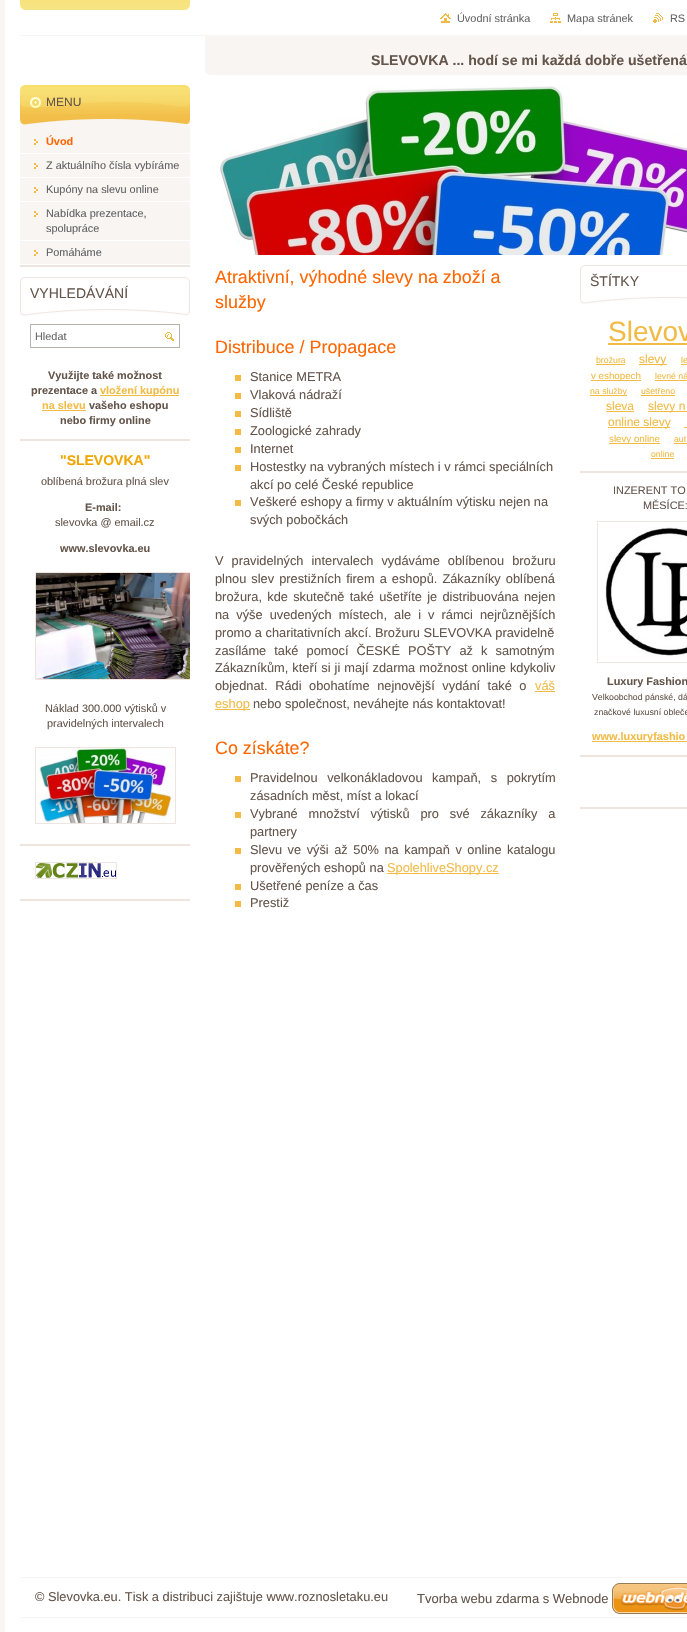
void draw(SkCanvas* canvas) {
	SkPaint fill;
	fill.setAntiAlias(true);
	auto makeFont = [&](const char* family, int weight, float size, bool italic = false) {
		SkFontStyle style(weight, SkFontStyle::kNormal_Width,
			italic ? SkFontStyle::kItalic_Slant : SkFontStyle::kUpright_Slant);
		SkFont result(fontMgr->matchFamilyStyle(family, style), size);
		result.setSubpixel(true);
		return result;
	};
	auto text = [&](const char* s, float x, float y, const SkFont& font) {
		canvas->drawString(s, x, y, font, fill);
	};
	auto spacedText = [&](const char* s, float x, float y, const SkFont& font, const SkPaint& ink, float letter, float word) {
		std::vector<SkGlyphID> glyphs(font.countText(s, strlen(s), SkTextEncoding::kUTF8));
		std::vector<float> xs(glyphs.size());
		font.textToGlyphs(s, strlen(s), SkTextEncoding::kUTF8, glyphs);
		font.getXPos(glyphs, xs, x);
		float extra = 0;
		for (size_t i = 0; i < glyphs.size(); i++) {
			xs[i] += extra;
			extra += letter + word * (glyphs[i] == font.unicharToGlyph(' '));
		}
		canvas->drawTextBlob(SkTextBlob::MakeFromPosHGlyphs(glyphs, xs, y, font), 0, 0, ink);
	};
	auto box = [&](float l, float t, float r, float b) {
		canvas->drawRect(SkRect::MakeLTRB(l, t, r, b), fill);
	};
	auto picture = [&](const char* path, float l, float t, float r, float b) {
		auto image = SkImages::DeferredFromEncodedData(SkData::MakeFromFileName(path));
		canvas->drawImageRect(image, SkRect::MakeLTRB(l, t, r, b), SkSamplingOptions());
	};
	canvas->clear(0xFFFFFFFF);
	picture("image0.png", 20, 0, 190, 10);
	fill.setColor(0xFFF8F5F3);
	box(0, 0, 5, 1632);
	picture("image1.png", 440, 13, 451, 23);
	picture("image2.png", 550, 13, 561, 23);
	picture("image3.png", 653, 13, 663, 23);
	picture("image4.png", 20, 35, 687, 41);
	box(205, 41, 687, 75);
	picture("image5.png", 205, 71, 210, 75);
	fill.setColor(0xFFEEE5E0);
	box(20, 265, 190, 267);
	fill.setColor(0xFFF8F5F3);
	box(20, 125, 190, 264);
	fill.setColor(0xFFF2BF4A);
	box(20, 114, 190, 119);
	picture("image6.png", 20, 85, 190, 114);
	picture("image7.png", 20, 119, 190, 125);
	picture("image8.png", 34, 139, 38, 145);
	fill.setColor(0xFFFFFFFF);
	box(20, 153, 190, 154);
	picture("image8.png", 34, 163, 38, 169);
	box(20, 177, 190, 178);
	picture("image8.png", 34, 187, 38, 193);
	box(20, 201, 190, 202);
	picture("image8.png", 34, 211, 38, 217);
	box(20, 240, 190, 241);
	picture("image8.png", 34, 250, 38, 256);
	picture("image9.png", 20, 277, 190, 309);
	picture("image10.png", 20, 309, 190, 317);
	fill.setStyle(SkPaint::kStroke_Style);
	fill.setStrokeWidth(1);
	fill.setColor(0xFFBAB3AF);
	canvas->drawRect(SkRect::MakeLTRB(30.5f, 324.5f, 179.5f, 347.5f), fill);
	picture("image11.png", 165, 332, 174, 341);
	fill.setStyle(SkPaint::kFill_Style);
	fill.setColor(0xFFEEE5E0);
	box(20, 439, 190, 441);
	fill.setColor(0xFFF1BB46);
	box(100, 395, 179, 396);
	box(42, 410, 86, 411);
	fill.setColor(0xFFEEE5E0);
	box(20, 844, 190, 846);
	canvas->save();
	canvas->clipRect(SkRect::MakeLTRB(20, 451, 190, 844));
	fill.setStyle(SkPaint::kStroke_Style);
	canvas->drawRect(SkRect::MakeLTRB(35.5f, 572.5f, 196.5f, 679.5f), fill);
	canvas->restore();
	picture("image12.png", 36, 573, 190, 679);
	canvas->drawRect(SkRect::MakeLTRB(35.5f, 747.5f, 175.5f, 823.5f), fill);
	picture("image13.png", 36, 748, 175, 823);
	fill.setStyle(SkPaint::kFill_Style);
	box(20, 899, 190, 901);
	fill.setStyle(SkPaint::kStroke_Style);
	canvas->drawRect(SkRect::MakeLTRB(35.5f, 862.5f, 116.5f, 878.5f), fill);
	picture("image14.png", 36, 863, 116, 878);
	picture("image15.png", 220, 85, 687, 255);
	fill.setStyle(SkPaint::kFill_Style);
	fill.setColor(0xFFF1BB46);
	box(235, 375, 241, 381);
	box(235, 393, 241, 399);
	box(235, 411, 241, 417);
	box(235, 429, 241, 435);
	box(235, 447, 241, 453);
	box(235, 465, 241, 471);
	box(235, 500, 241, 506);
	box(535, 691, 555, 692);
	box(215, 709, 250, 710);
	box(235, 776, 241, 782);
	box(235, 812, 241, 818);
	box(235, 848, 241, 854);
	box(387, 873, 499, 874);
	box(235, 884, 241, 890);
	box(235, 901, 241, 907);
	fill.setColor(0xFFEEE5E0);
	box(580, 471, 687, 473);
	picture("image16.png", 580, 265, 687, 297);
	picture("image17.png", 580, 297, 687, 305);
	fill.setColor(0xFFF1BB46);
	box(608, 343, 687, 345);
	box(596, 364, 625, 365);
	box(639, 364, 667, 365);
	box(681, 364, 687, 365);
	box(591, 380, 641, 381);
	box(655, 380, 687, 381);
	box(590, 395, 627, 396);
	box(641, 395, 675, 396);
	box(606, 411, 634, 412);
	box(648, 411, 687, 412);
	box(608, 427, 670, 428);
	box(684, 427, 687, 428);
	box(609, 443, 660, 444);
	box(674, 443, 687, 444);
	box(651, 458, 674, 459);
	fill.setColor(0xFFEEE5E0);
	box(580, 755, 687, 757);
	fill.setStyle(SkPaint::kStroke_Style);
	canvas->drawRect(SkRect::MakeLTRB(597.5f, 521.5f, 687.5f, 662.5f), fill);
	picture("image18.png", 605, 527, 687, 656);
	fill.setStyle(SkPaint::kFill_Style);
	fill.setColor(0xFFF1BB46);
	box(592, 741, 687, 742);
	fill.setColor(0xFFEEE5E0);
	box(580, 807, 687, 809);
	fill.setColor(0xFFF8F5F3);
	box(20, 1577, 687, 1578);
	box(20, 1617, 687, 1618);
	picture("image19.png", 612, 1583, 687, 1614);
	auto font1 = makeFont("Liberation Sans", 400, 10.9f);
	fill.setColor(0xFF666666);
	text("Úvodní stránka", 457, 22, font1);
	text("Mapa stránek", 567, 22, font1);
	text("RS", 670, 22, font1);
	auto font2 = makeFont("Liberation Sans", 700, 14.1f);
	fill.setColor(0xFF64554B);
	text("SLEVOVKA ... hodí se mi každá dobře ušetřená", 371, 65, font2);
	auto font3 = makeFont("Liberation Sans", 400, 12);
	text("MENU", 46, 106, font3);
	auto font4 = makeFont("Liberation Sans", 700, 10.9f);
	fill.setColor(0xFFFF6600);
	text("Úvod", 46, 145, font4);
	fill.setColor(0xFF606060);
	text("Z aktuálního čísla vybíráme", 46, 169, font1);
	text("Kupóny na slevu online", 46, 193, font1);
	text("Nabídka prezentace,", 46, 217, font1);
	text("spolupráce", 46, 232, font1);
	text("Pomáháme", 46, 256, font1);
	auto font5 = makeFont("Liberation Sans", 400, 14);
	fill.setColor(0xFF64554B);
	text("VYHLEDÁVÁNÍ", 30, 298, font5);
	fill.setColor(0xFF666666);
	text("Hledat", 35, 340, font1);
	fill.setColor(0xFF64554B);
	text("Využijte také možnost", 48, 379, font4);
	text("prezentace a", 31, 394, font4);
	fill.setColor(0xFFF1BB46);
	text("vložení kupónu", 100, 394, font4);
	text("na slevu", 42, 409, font4);
	fill.setColor(0xFF64554B);
	text("vašeho eshopu", 89, 409, font4);
	text("nebo firmy online", 60, 424, font4);
	auto font6 = makeFont("Liberation Sans", 700, 14);
	fill.setColor(0xFFF1A500);
	text("\"SLEVOVKA\"", 60, 465, font6);
	fill.setColor(0xFF64554B);
	text("oblíbená brožura plná slev", 41, 485, font1);
	text("E-mail:", 85, 511, font4);
	text("slevovka @ email.cz", 55, 526, font1);
	text("www.slevovka.eu", 60, 552, font4);
	text("Náklad 300.000 výtisků v", 45, 712, font1);
	text("pravidelných intervalech", 47, 727, font1);
	auto font7 = makeFont("Liberation Sans", 400, 17.9f);
	fill.setColor(0xFFFF6600);
	text("Atraktivní, výhodné slevy na zboží a", 215, 283, font7);
	text("služby", 215, 308, font7);
	text("Distribuce / Propagace", 215, 353, font7);
	auto font8 = makeFont("Liberation Sans", 400, 12.8f);
	fill.setColor(0xFF64554B);
	text("Stanice METRA", 250, 381, font8);
	text("Vlaková nádraží", 250, 399, font8);
	text("Sídliště", 250, 417, font8);
	text("Zoologické zahrady", 250, 435, font8);
	text("Internet", 250, 453, font8);
	text("Hostestky na vybraných místech i v rámci speciálních", 250, 471, font8);
	text("akcí po celé České republice", 250, 489, font8);
	text("Veškeré eshopy a firmy v aktuálním výtisku nejen na", 250, 506, font8);
	text("svých pobočkách", 250, 524, font8);
	spacedText("V pravidelných intervalech vydáváme oblíbenou brožuru", 215, 565, font8, fill, 0, 4.5f);
	spacedText("plnou slev prestižních firem a eshopů. Zákazníky oblíbená", 215, 583, font8, fill, 0, 1.5f);
	spacedText("brožura, kde skutečně také ušetříte je distribuována nejen", 215, 601, font8, fill, 0, 1.75f);
	spacedText("na výše uvedených místech, ale i v rámci nejrůznějších", 215, 619, font8, fill, 0, 3.5f);
	text("promo a charitativních akcí. Brožuru SLEVOVKA pravidelně", 215, 637, font8);
	spacedText("zasíláme také pomocí ČESKÉ POŠTY až k samotným", 215, 655, font8, fill, 0, 4.5f);
	spacedText("Zákazníkům, kteří si ji mají zdarma možnost online kdykoliv", 215, 672, font8, fill, 0, 0.5f);
	spacedText("objednat. Rádi obohatíme nejnovější vydání také o", 215, 690, font8, fill, 0, 4);
	fill.setColor(0xFFF1BB46);
	text("váš", 535, 690, font8);
	text("eshop", 215, 708, font8);
	fill.setColor(0xFF64554B);
	text("nebo společnost, neváhejte nás kontaktovat!", 253, 708, font8);
	fill.setColor(0xFFFF6600);
	text("Co získáte?", 215, 754, font7);
	fill.setColor(0xFF64554B);
	spacedText("Pravidelnou velkonákladovou kampaň, s pokrytím", 250, 782, font8, fill, 0, 6);
	text("zásadních měst, míst a lokací", 250, 800, font8);
	spacedText("Vybrané množství výtisků pro své zákazníky a", 250, 818, font8, fill, 0, 7.25f);
	text("partnery", 250, 836, font8);
	spacedText("Slevu ve výši až 50% na kampaň v online katalogu", 250, 854, font8, fill, 0, 2);
	text("prověřených eshopů na", 250, 872, font8);
	fill.setColor(0xFFF1BB46);
	text("SpolehliveShopy.cz", 387, 872, font8);
	fill.setColor(0xFF64554B);
	text("Ušetřené peníze a čas", 250, 890, font8);
	text("Prestiž", 250, 907, font8);
	text("ŠTÍTKY", 590, 286, font5);
	auto font9 = makeFont("Liberation Sans", 400, 28);
	fill.setColor(0xFFF1BB46);
	text("Slevov", 608, 341, font9);
	auto font10 = makeFont("Liberation Sans", 400, 8.75f);
	text("brožura", 596, 363, font10);
	text("slevy", 639, 363, font3);
	text("le", 681, 363, font10);
	auto font11 = makeFont("Liberation Sans", 400, 9.75f);
	text("v eshopech", 591, 379, font11);
	text("levné ná", 655, 379, font10);
	text("na služby", 590, 394, font10);
	text("ušetřeno", 641, 394, font10);
	text("sleva", 606, 410, font3);
	text("slevy n", 648, 410, font3);
	text("online slevy", 608, 426, font3);
	text("slevy online", 609, 442, font11);
	text("aut", 674, 442, font10);
	text("online", 651, 457, font10);
	fill.setColor(0xFF64554B);
	text("INZERENT TO", 613, 494, font1);
	text("MĚSÍCE:", 643, 509, font1);
	text("Luxury Fashion", 607, 685, font4);
	text("Velkoobchod pánské, dá", 592, 700, font10);
	text("značkové luxusní obleče", 594, 715, font10);
	fill.setColor(0xFFF1BB46);
	text("www.luxuryfashio", 592, 740, font4);
	fill.setColor(0xFF64554B);
	text("© Slevovka.eu. Tisk a distribuci zajištuje www.roznosletaku.eu", 35, 1601, font8);
	auto font12 = makeFont("Liberation Sans", 400, 13);
	text("Tvorba webu zdarma s Webnode", 417, 1603, font12);
}
